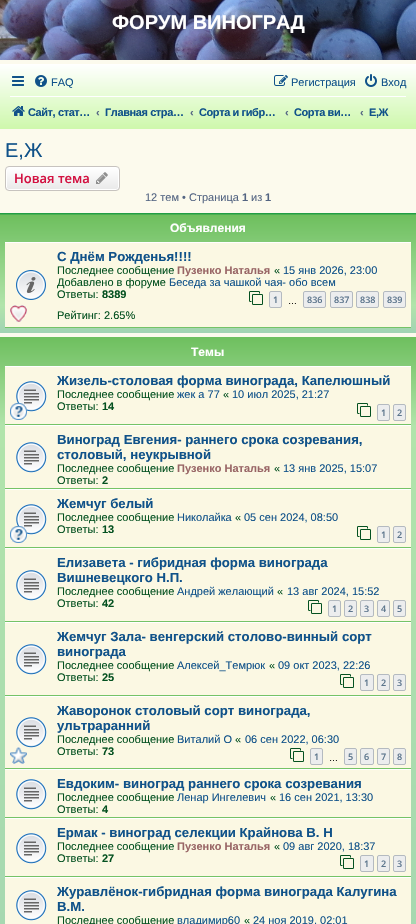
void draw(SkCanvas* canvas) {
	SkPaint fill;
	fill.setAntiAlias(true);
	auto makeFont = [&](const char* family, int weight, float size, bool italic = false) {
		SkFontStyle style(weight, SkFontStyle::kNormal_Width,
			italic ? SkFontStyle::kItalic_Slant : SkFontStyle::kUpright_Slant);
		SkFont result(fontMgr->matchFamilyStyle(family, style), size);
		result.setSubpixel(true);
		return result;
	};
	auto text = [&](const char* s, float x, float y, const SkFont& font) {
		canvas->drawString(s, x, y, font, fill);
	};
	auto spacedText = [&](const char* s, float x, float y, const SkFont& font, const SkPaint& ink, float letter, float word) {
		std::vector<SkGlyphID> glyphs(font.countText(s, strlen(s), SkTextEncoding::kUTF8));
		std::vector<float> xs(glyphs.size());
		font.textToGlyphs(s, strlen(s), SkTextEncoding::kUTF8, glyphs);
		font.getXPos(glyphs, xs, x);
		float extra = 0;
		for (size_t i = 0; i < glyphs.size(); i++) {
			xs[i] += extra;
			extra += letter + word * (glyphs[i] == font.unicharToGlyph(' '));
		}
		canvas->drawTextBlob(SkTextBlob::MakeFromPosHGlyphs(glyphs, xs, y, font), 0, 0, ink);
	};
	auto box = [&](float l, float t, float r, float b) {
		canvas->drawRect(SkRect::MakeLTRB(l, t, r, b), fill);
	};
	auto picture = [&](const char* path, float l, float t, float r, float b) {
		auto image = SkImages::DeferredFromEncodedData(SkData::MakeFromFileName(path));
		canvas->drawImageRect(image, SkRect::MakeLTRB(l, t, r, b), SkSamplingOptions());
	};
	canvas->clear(0xFFFCFAED);
	picture("image0.png", 0, 0, 416, 60);
	{
		const SkColor colors[] = {0xFFFFFFFF, 0xFFCEF8AC};
		const float stops[] = {0, 1};
		const SkPoint ends[] = {{208, 64}, {208, 129}};
		fill.setShader(SkGradientShader::MakeLinear(ends, colors, stops, 2, SkTileMode::kClamp));
		fill.setAlpha(255);
	}
	box(0, 64, 416, 129);
	picture("image1.png", 12, 76, 24, 86);
	picture("image2.png", 35, 75, 47, 87);
	picture("image3.png", 274, 75, 288, 86);
	picture("image4.png", 365, 74, 377, 87);
	fill.setShader(nullptr);
	fill.setColor(0xFFFFFFFF);
	box(10, 96, 406, 97);
	picture("image5.png", 12, 106, 25, 116);
	canvas->save();
	canvas->clipPath(SkPathBuilder().moveTo(9, 166).lineTo(116, 166).cubicTo(118, 166, 120, 168, 120, 170).lineTo(120, 187).cubicTo(120, 189, 118, 191, 116, 191).lineTo(9, 191).cubicTo(7, 191, 5, 189, 5, 187).lineTo(5, 170).cubicTo(5, 168, 7, 166, 9, 166).close().detach(), true);
	{
		const SkColor colors[] = {0xFFFFFFFF, 0xFFE9E9E9};
		const float stops[] = {0, 1};
		const SkPoint ends[] = {{63, 167}, {63, 190}};
		fill.setShader(SkGradientShader::MakeLinear(ends, colors, stops, 2, SkTileMode::kClamp));
		fill.setAlpha(255);
	}
	box(5, 167, 120, 190);
	canvas->restore();
	fill.setStyle(SkPaint::kStroke_Style);
	fill.setStrokeWidth(1);
	fill.setShader(nullptr);
	fill.setColor(0xFFFFFFFF);
	canvas->drawRoundRect(SkRect::MakeLTRB(6.5f, 167.5f, 118.5f, 189.5f), 2.5f, 2.5f, fill);
	fill.setColor(0xFFC7C3BF);
	canvas->drawRoundRect(SkRect::MakeLTRB(5.5f, 166.5f, 119.5f, 190.5f), 3.5f, 3.5f, fill);
	picture("image6.png", 96, 172, 108, 184);
	fill.setStyle(SkPaint::kFill_Style);
	{
		const SkColor colors[] = {0xFF0E953E, 0xFF6EBF5E, 0xFFB1E4AB, 0xFFA1D3B3};
		const float stops[] = {0, 0.02f, 0.77f, 1};
		const SkPoint ends[] = {{208, 213}, {208, 333}};
		fill.setShader(SkGradientShader::MakeLinear(ends, colors, stops, 4, SkTileMode::kClamp));
		fill.setAlpha(255);
	}
	box(0, 213, 416, 333);
	fill.setShader(nullptr);
	fill.setColor(0xFFFBF8E3);
	box(5, 243, 411, 327);
	fill.setColor(0xFFFFFFFF);
	box(5, 242, 411, 243);
	fill.setColor(0xFF75C367);
	box(5, 327, 411, 328);
	picture("image7.png", 16, 270, 46, 300);
	picture("image8.png", 10, 305, 27, 322);
	picture("image9.png", 249, 291, 263, 305);
	fill.setColor(0xFFECEDEE);
	canvas->drawRoundRect(SkRect::MakeLTRB(269.5f, 291.5f, 281.5f, 307.5f), 1.5f, 1.5f, fill);
	fill.setStyle(SkPaint::kStroke_Style);
	fill.setColor(0xFFB4BAC0);
	canvas->drawRoundRect(SkRect::MakeLTRB(269.5f, 291.5f, 281.5f, 307.5f), 1.5f, 1.5f, fill);
	fill.setStyle(SkPaint::kFill_Style);
	fill.setColor(0xFFECEDEE);
	canvas->drawRoundRect(SkRect::MakeLTRB(303.5f, 291.5f, 325.5f, 307.5f), 1.5f, 1.5f, fill);
	fill.setStyle(SkPaint::kStroke_Style);
	fill.setColor(0xFFB4BAC0);
	canvas->drawRoundRect(SkRect::MakeLTRB(303.5f, 291.5f, 325.5f, 307.5f), 1.5f, 1.5f, fill);
	fill.setStyle(SkPaint::kFill_Style);
	fill.setColor(0xFFECEDEE);
	canvas->drawRoundRect(SkRect::MakeLTRB(330.5f, 291.5f, 352.5f, 307.5f), 1.5f, 1.5f, fill);
	fill.setStyle(SkPaint::kStroke_Style);
	fill.setColor(0xFFB4BAC0);
	canvas->drawRoundRect(SkRect::MakeLTRB(330.5f, 291.5f, 352.5f, 307.5f), 1.5f, 1.5f, fill);
	fill.setStyle(SkPaint::kFill_Style);
	fill.setColor(0xFFECEDEE);
	canvas->drawRoundRect(SkRect::MakeLTRB(356.5f, 291.5f, 378.5f, 307.5f), 1.5f, 1.5f, fill);
	fill.setStyle(SkPaint::kStroke_Style);
	fill.setColor(0xFFB4BAC0);
	canvas->drawRoundRect(SkRect::MakeLTRB(356.5f, 291.5f, 378.5f, 307.5f), 1.5f, 1.5f, fill);
	fill.setStyle(SkPaint::kFill_Style);
	fill.setColor(0xFFECEDEE);
	canvas->drawRoundRect(SkRect::MakeLTRB(383.5f, 291.5f, 405.5f, 307.5f), 1.5f, 1.5f, fill);
	fill.setStyle(SkPaint::kStroke_Style);
	fill.setColor(0xFFB4BAC0);
	canvas->drawRoundRect(SkRect::MakeLTRB(383.5f, 291.5f, 405.5f, 307.5f), 1.5f, 1.5f, fill);
	fill.setStyle(SkPaint::kFill_Style);
	{
		const SkColor colors[] = {0xFF0E953E, 0xFF6EBF5E, 0xFFB1E4AB, 0xFFA1D3B3};
		const float stops[] = {0, 0, 0.11f, 1};
		const SkPoint ends[] = {{208, 337}, {208, 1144}};
		fill.setShader(SkGradientShader::MakeLinear(ends, colors, stops, 4, SkTileMode::kClamp));
		fill.setAlpha(255);
	}
	box(0, 337, 416, 924);
	fill.setShader(nullptr);
	fill.setColor(0xFFFBF8E3);
	box(5, 367, 411, 424);
	fill.setColor(0xFFFFFFFF);
	box(5, 366, 411, 367);
	fill.setColor(0xFF75C367);
	box(5, 424, 411, 425);
	picture("image10.png", 16, 381, 47, 412);
	picture("image11.png", 10, 403, 27, 420);
	picture("image9.png", 357, 403, 371, 417);
	fill.setColor(0xFFECEDEE);
	canvas->drawRoundRect(SkRect::MakeLTRB(377.5f, 404.5f, 389.5f, 420.5f), 1.5f, 1.5f, fill);
	fill.setStyle(SkPaint::kStroke_Style);
	fill.setColor(0xFFB4BAC0);
	canvas->drawRoundRect(SkRect::MakeLTRB(377.5f, 404.5f, 389.5f, 420.5f), 1.5f, 1.5f, fill);
	fill.setStyle(SkPaint::kFill_Style);
	fill.setColor(0xFFECEDEE);
	canvas->drawRoundRect(SkRect::MakeLTRB(393.5f, 404.5f, 405.5f, 420.5f), 1.5f, 1.5f, fill);
	fill.setStyle(SkPaint::kStroke_Style);
	fill.setColor(0xFFB4BAC0);
	canvas->drawRoundRect(SkRect::MakeLTRB(393.5f, 404.5f, 405.5f, 420.5f), 1.5f, 1.5f, fill);
	fill.setStyle(SkPaint::kFill_Style);
	fill.setColor(0xFFFBF8E3);
	box(5, 426, 411, 488);
	fill.setColor(0xFFFFFFFF);
	box(5, 425, 411, 426);
	fill.setColor(0xFF75C367);
	box(5, 488, 411, 489);
	picture("image10.png", 16, 442, 47, 473);
	fill.setColor(0xFFFBF8E3);
	box(5, 490, 411, 547);
	fill.setColor(0xFFFFFFFF);
	box(5, 489, 411, 490);
	fill.setColor(0xFF75C367);
	box(5, 547, 411, 548);
	picture("image10.png", 16, 504, 47, 535);
	picture("image11.png", 10, 526, 27, 543);
	picture("image9.png", 357, 526, 371, 540);
	fill.setColor(0xFFECEDEE);
	canvas->drawRoundRect(SkRect::MakeLTRB(377.5f, 526.5f, 389.5f, 542.5f), 1.5f, 1.5f, fill);
	fill.setStyle(SkPaint::kStroke_Style);
	fill.setColor(0xFFB4BAC0);
	canvas->drawRoundRect(SkRect::MakeLTRB(377.5f, 526.5f, 389.5f, 542.5f), 1.5f, 1.5f, fill);
	fill.setStyle(SkPaint::kFill_Style);
	fill.setColor(0xFFECEDEE);
	canvas->drawRoundRect(SkRect::MakeLTRB(393.5f, 526.5f, 405.5f, 542.5f), 1.5f, 1.5f, fill);
	fill.setStyle(SkPaint::kStroke_Style);
	fill.setColor(0xFFB4BAC0);
	canvas->drawRoundRect(SkRect::MakeLTRB(393.5f, 526.5f, 405.5f, 542.5f), 1.5f, 1.5f, fill);
	fill.setStyle(SkPaint::kFill_Style);
	fill.setColor(0xFFFBF8E3);
	box(5, 549, 411, 621);
	fill.setColor(0xFFFFFFFF);
	box(5, 548, 411, 549);
	fill.setColor(0xFF75C367);
	box(5, 621, 411, 622);
	picture("image10.png", 16, 570, 47, 601);
	picture("image9.png", 308, 600, 322, 614);
	fill.setColor(0xFFECEDEE);
	canvas->drawRoundRect(SkRect::MakeLTRB(328.5f, 600.5f, 340.5f, 616.5f), 1.5f, 1.5f, fill);
	fill.setStyle(SkPaint::kStroke_Style);
	fill.setColor(0xFFB4BAC0);
	canvas->drawRoundRect(SkRect::MakeLTRB(328.5f, 600.5f, 340.5f, 616.5f), 1.5f, 1.5f, fill);
	fill.setStyle(SkPaint::kFill_Style);
	fill.setColor(0xFFECEDEE);
	canvas->drawRoundRect(SkRect::MakeLTRB(344.5f, 600.5f, 356.5f, 616.5f), 1.5f, 1.5f, fill);
	fill.setStyle(SkPaint::kStroke_Style);
	fill.setColor(0xFFB4BAC0);
	canvas->drawRoundRect(SkRect::MakeLTRB(344.5f, 600.5f, 356.5f, 616.5f), 1.5f, 1.5f, fill);
	fill.setStyle(SkPaint::kFill_Style);
	fill.setColor(0xFFECEDEE);
	canvas->drawRoundRect(SkRect::MakeLTRB(360.5f, 600.5f, 373.5f, 616.5f), 1.5f, 1.5f, fill);
	fill.setStyle(SkPaint::kStroke_Style);
	fill.setColor(0xFFB4BAC0);
	canvas->drawRoundRect(SkRect::MakeLTRB(360.5f, 600.5f, 373.5f, 616.5f), 1.5f, 1.5f, fill);
	fill.setStyle(SkPaint::kFill_Style);
	fill.setColor(0xFFECEDEE);
	canvas->drawRoundRect(SkRect::MakeLTRB(377.5f, 600.5f, 389.5f, 616.5f), 1.5f, 1.5f, fill);
	fill.setStyle(SkPaint::kStroke_Style);
	fill.setColor(0xFFB4BAC0);
	canvas->drawRoundRect(SkRect::MakeLTRB(377.5f, 600.5f, 389.5f, 616.5f), 1.5f, 1.5f, fill);
	fill.setStyle(SkPaint::kFill_Style);
	fill.setColor(0xFFECEDEE);
	canvas->drawRoundRect(SkRect::MakeLTRB(393.5f, 600.5f, 405.5f, 616.5f), 1.5f, 1.5f, fill);
	fill.setStyle(SkPaint::kStroke_Style);
	fill.setColor(0xFFB4BAC0);
	canvas->drawRoundRect(SkRect::MakeLTRB(393.5f, 600.5f, 405.5f, 616.5f), 1.5f, 1.5f, fill);
	fill.setStyle(SkPaint::kFill_Style);
	fill.setColor(0xFFFBF8E3);
	box(5, 623, 411, 695);
	fill.setColor(0xFFFFFFFF);
	box(5, 622, 411, 623);
	fill.setColor(0xFF75C367);
	box(5, 695, 411, 696);
	picture("image10.png", 16, 644, 47, 675);
	picture("image9.png", 340, 674, 354, 688);
	fill.setColor(0xFFECEDEE);
	canvas->drawRoundRect(SkRect::MakeLTRB(360.5f, 674.5f, 373.5f, 690.5f), 1.5f, 1.5f, fill);
	fill.setStyle(SkPaint::kStroke_Style);
	fill.setColor(0xFFB4BAC0);
	canvas->drawRoundRect(SkRect::MakeLTRB(360.5f, 674.5f, 373.5f, 690.5f), 1.5f, 1.5f, fill);
	fill.setStyle(SkPaint::kFill_Style);
	fill.setColor(0xFFECEDEE);
	canvas->drawRoundRect(SkRect::MakeLTRB(377.5f, 674.5f, 389.5f, 690.5f), 1.5f, 1.5f, fill);
	fill.setStyle(SkPaint::kStroke_Style);
	fill.setColor(0xFFB4BAC0);
	canvas->drawRoundRect(SkRect::MakeLTRB(377.5f, 674.5f, 389.5f, 690.5f), 1.5f, 1.5f, fill);
	fill.setStyle(SkPaint::kFill_Style);
	fill.setColor(0xFFECEDEE);
	canvas->drawRoundRect(SkRect::MakeLTRB(393.5f, 674.5f, 405.5f, 690.5f), 1.5f, 1.5f, fill);
	fill.setStyle(SkPaint::kStroke_Style);
	fill.setColor(0xFFB4BAC0);
	canvas->drawRoundRect(SkRect::MakeLTRB(393.5f, 674.5f, 405.5f, 690.5f), 1.5f, 1.5f, fill);
	fill.setStyle(SkPaint::kFill_Style);
	fill.setColor(0xFFFBF8E3);
	box(5, 697, 411, 768);
	fill.setColor(0xFFFFFFFF);
	box(5, 696, 411, 697);
	fill.setColor(0xFF75C367);
	box(5, 768, 411, 769);
	picture("image10.png", 16, 717, 47, 748);
	picture("image12.png", 10, 747, 27, 764);
	picture("image9.png", 290, 748, 304, 762);
	fill.setColor(0xFFECEDEE);
	canvas->drawRoundRect(SkRect::MakeLTRB(310.5f, 748.5f, 322.5f, 764.5f), 1.5f, 1.5f, fill);
	fill.setStyle(SkPaint::kStroke_Style);
	fill.setColor(0xFFB4BAC0);
	canvas->drawRoundRect(SkRect::MakeLTRB(310.5f, 748.5f, 322.5f, 764.5f), 1.5f, 1.5f, fill);
	fill.setStyle(SkPaint::kFill_Style);
	fill.setColor(0xFFECEDEE);
	canvas->drawRoundRect(SkRect::MakeLTRB(344.5f, 748.5f, 356.5f, 764.5f), 1.5f, 1.5f, fill);
	fill.setStyle(SkPaint::kStroke_Style);
	fill.setColor(0xFFB4BAC0);
	canvas->drawRoundRect(SkRect::MakeLTRB(344.5f, 748.5f, 356.5f, 764.5f), 1.5f, 1.5f, fill);
	fill.setStyle(SkPaint::kFill_Style);
	fill.setColor(0xFFECEDEE);
	canvas->drawRoundRect(SkRect::MakeLTRB(360.5f, 748.5f, 373.5f, 764.5f), 1.5f, 1.5f, fill);
	fill.setStyle(SkPaint::kStroke_Style);
	fill.setColor(0xFFB4BAC0);
	canvas->drawRoundRect(SkRect::MakeLTRB(360.5f, 748.5f, 373.5f, 764.5f), 1.5f, 1.5f, fill);
	fill.setStyle(SkPaint::kFill_Style);
	fill.setColor(0xFFECEDEE);
	canvas->drawRoundRect(SkRect::MakeLTRB(377.5f, 748.5f, 389.5f, 764.5f), 1.5f, 1.5f, fill);
	fill.setStyle(SkPaint::kStroke_Style);
	fill.setColor(0xFFB4BAC0);
	canvas->drawRoundRect(SkRect::MakeLTRB(377.5f, 748.5f, 389.5f, 764.5f), 1.5f, 1.5f, fill);
	fill.setStyle(SkPaint::kFill_Style);
	fill.setColor(0xFFECEDEE);
	canvas->drawRoundRect(SkRect::MakeLTRB(393.5f, 748.5f, 405.5f, 764.5f), 1.5f, 1.5f, fill);
	fill.setStyle(SkPaint::kStroke_Style);
	fill.setColor(0xFFB4BAC0);
	canvas->drawRoundRect(SkRect::MakeLTRB(393.5f, 748.5f, 405.5f, 764.5f), 1.5f, 1.5f, fill);
	fill.setStyle(SkPaint::kFill_Style);
	fill.setColor(0xFFFBF8E3);
	box(5, 770, 411, 817);
	fill.setColor(0xFFFFFFFF);
	box(5, 769, 411, 770);
	fill.setColor(0xFF75C367);
	box(5, 817, 411, 818);
	picture("image10.png", 16, 779, 47, 810);
	fill.setColor(0xFFFBF8E3);
	box(5, 819, 411, 876);
	fill.setColor(0xFFFFFFFF);
	box(5, 818, 411, 819);
	fill.setColor(0xFF75C367);
	box(5, 876, 411, 877);
	picture("image10.png", 16, 833, 47, 864);
	picture("image9.png", 340, 855, 354, 869);
	fill.setColor(0xFFECEDEE);
	canvas->drawRoundRect(SkRect::MakeLTRB(360.5f, 855.5f, 373.5f, 871.5f), 1.5f, 1.5f, fill);
	fill.setStyle(SkPaint::kStroke_Style);
	fill.setColor(0xFFB4BAC0);
	canvas->drawRoundRect(SkRect::MakeLTRB(360.5f, 855.5f, 373.5f, 871.5f), 1.5f, 1.5f, fill);
	fill.setStyle(SkPaint::kFill_Style);
	fill.setColor(0xFFECEDEE);
	canvas->drawRoundRect(SkRect::MakeLTRB(377.5f, 855.5f, 389.5f, 871.5f), 1.5f, 1.5f, fill);
	fill.setStyle(SkPaint::kStroke_Style);
	fill.setColor(0xFFB4BAC0);
	canvas->drawRoundRect(SkRect::MakeLTRB(377.5f, 855.5f, 389.5f, 871.5f), 1.5f, 1.5f, fill);
	fill.setStyle(SkPaint::kFill_Style);
	fill.setColor(0xFFECEDEE);
	canvas->drawRoundRect(SkRect::MakeLTRB(393.5f, 855.5f, 405.5f, 871.5f), 1.5f, 1.5f, fill);
	fill.setStyle(SkPaint::kStroke_Style);
	fill.setColor(0xFFB4BAC0);
	canvas->drawRoundRect(SkRect::MakeLTRB(393.5f, 855.5f, 405.5f, 871.5f), 1.5f, 1.5f, fill);
	fill.setStyle(SkPaint::kFill_Style);
	fill.setColor(0xFFFBF8E3);
	box(5, 878, 411, 924);
	fill.setColor(0xFFFFFFFF);
	box(5, 877, 411, 878);
	picture("image10.png", 16, 890, 47, 921);
	auto font1 = makeFont("Liberation Sans", 700, 20);
	text("ФОРУМ ВИНОГРАД", 112, 29, font1);
	auto font2 = makeFont("Liberation Sans", 400, 11);
	fill.setColor(0xFF105289);
	text("FAQ", 51, 86, font2);
	text("Регистрация", 291, 86, font2);
	text("Вход", 381, 86, font2);
	auto font3 = makeFont("Liberation Sans", 700, 11);
	spacedText("Сайт, стат…", 28, 116, font3, fill, -0.4f, 0);
	fill.setColor(0xFF536482);
	text("‹", 96, 116, font3);
	fill.setColor(0xFF105289);
	spacedText("Главная стра…", 105, 116, font3, fill, -0.4f, 0);
	fill.setColor(0xFF536482);
	text("‹", 190, 116, font3);
	fill.setColor(0xFF105289);
	spacedText("Сорта и гибр…", 199, 116, font3, fill, -0.4f, 0);
	fill.setColor(0xFF536482);
	text("‹", 285, 116, font3);
	fill.setColor(0xFF105289);
	spacedText("Сорта ви…", 294, 116, font3, fill, -0.4f, 0);
	fill.setColor(0xFF536482);
	text("‹", 360, 116, font3);
	fill.setColor(0xFF105289);
	spacedText("Е,Ж", 369, 116, font3, fill, -0.4f, 0);
	auto font4 = makeFont("Liberation Sans", 400, 20);
	text("Е,Ж", 5, 157, font4);
	auto font5 = makeFont("Open Sans", 600, 13);
	fill.setColor(0xFFD31141);
	text("Новая тема", 14, 183, font5);
	fill.setColor(0xFF536482);
	text("12 тем • Страница", 145, 201, font2);
	text("1", 242, 201, font3);
	text("из", 251, 201, font2);
	text("1", 265, 201, font3);
	auto font6 = makeFont("Liberation Sans", 700, 12);
	fill.setColor(0xFFFFFFFF);
	text("Объявления", 170, 232, font6);
	auto font7 = makeFont("Liberation Sans", 700, 13.2f);
	fill.setColor(0xFF105289);
	text("С Днём Рожденья!!!!", 57, 261, font7);
	fill.setColor(0xFF045120);
	text("Последнее сообщение", 57, 274, font2);
	fill.setColor(0xFF996666);
	text("Пузенко Наталья", 177, 274, font3);
	fill.setColor(0xFF045120);
	text("«", 274, 274, font2);
	fill.setColor(0xFF105289);
	text("15 янв 2026, 23:00", 283, 274, font2);
	fill.setColor(0xFF045120);
	text("Добавлено в форуме", 57, 286, font2);
	fill.setColor(0xFF105289);
	text("Беседа за чашкой чая- обо всем", 169, 286, font2);
	fill.setColor(0xFF045120);
	text("Ответы:", 57, 298, font2);
	text("8389", 102, 298, font3);
	auto font8 = makeFont("Open Sans", 600, 9);
	fill.setColor(0xFF5C758C);
	text("1", 273, 303, font8);
	auto font9 = makeFont("Liberation Sans", 400, 9);
	fill.setColor(0xFF000000);
	text("…", 288, 304, font9);
	fill.setColor(0xFF5C758C);
	text("836", 307, 303, font8);
	text("837", 334, 303, font8);
	text("838", 360, 303, font8);
	text("839", 387, 303, font8);
	fill.setColor(0xFF045120);
	text("Рейтинг: 2.65%", 57, 319, font2);
	fill.setColor(0xFFFFFFFF);
	text("Темы", 191, 356, font6);
	fill.setColor(0xFF105289);
	text("Жизель-столовая форма винограда, Капелюшный", 57, 385, font7);
	fill.setColor(0xFF045120);
	text("Последнее сообщение", 57, 398, font2);
	fill.setColor(0xFF105289);
	text("жек а 77", 177, 398, font2);
	fill.setColor(0xFF045120);
	text("«", 223, 398, font2);
	fill.setColor(0xFF105289);
	text("10 июл 2025, 21:27", 232, 398, font2);
	fill.setColor(0xFF045120);
	text("Ответы:", 57, 410, font2);
	text("14", 102, 410, font3);
	fill.setColor(0xFF5C758C);
	text("1", 381, 416, font8);
	text("2", 397, 416, font8);
	fill.setColor(0xFF105289);
	text("Виноград Евгения- раннего срока созревания,", 57, 444, font7);
	text("столовый, неукрывной", 57, 459, font7);
	fill.setColor(0xFF045120);
	text("Последнее сообщение", 57, 472, font2);
	fill.setColor(0xFF996666);
	text("Пузенко Наталья", 177, 472, font3);
	fill.setColor(0xFF045120);
	text("«", 274, 472, font2);
	fill.setColor(0xFF105289);
	text("13 янв 2025, 15:07", 283, 472, font2);
	fill.setColor(0xFF045120);
	text("Ответы:", 57, 484, font2);
	text("2", 102, 484, font3);
	fill.setColor(0xFF105289);
	text("Жемчуг белый", 57, 508, font7);
	fill.setColor(0xFF045120);
	text("Последнее сообщение", 57, 521, font2);
	fill.setColor(0xFF105289);
	text("Николайка", 177, 521, font2);
	fill.setColor(0xFF045120);
	text("«", 235, 521, font2);
	fill.setColor(0xFF105289);
	text("05 сен 2024, 08:50", 244, 521, font2);
	fill.setColor(0xFF045120);
	text("Ответы:", 57, 533, font2);
	text("13", 102, 533, font3);
	fill.setColor(0xFF5C758C);
	text("1", 381, 538, font8);
	text("2", 397, 538, font8);
	fill.setColor(0xFF105289);
	text("Елизавета - гибридная форма винограда", 57, 567, font7);
	text("Вишневецкого Н.П.", 57, 582, font7);
	fill.setColor(0xFF045120);
	text("Последнее сообщение", 57, 595, font2);
	fill.setColor(0xFF105289);
	text("Андрей желающий", 177, 595, font2);
	fill.setColor(0xFF045120);
	text("«", 277, 595, font2);
	fill.setColor(0xFF105289);
	text("13 авг 2024, 15:52", 287, 595, font2);
	fill.setColor(0xFF045120);
	text("Ответы:", 57, 607, font2);
	text("42", 102, 607, font3);
	fill.setColor(0xFF5C758C);
	text("1", 332, 612, font8);
	text("2", 348, 612, font8);
	text("3", 364, 612, font8);
	text("4", 381, 612, font8);
	text("5", 397, 612, font8);
	fill.setColor(0xFF105289);
	text("Жемчуг Зала- венгерский столово-винный сорт", 57, 641, font7);
	text("винограда", 57, 656, font7);
	fill.setColor(0xFF045120);
	text("Последнее сообщение", 57, 669, font2);
	fill.setColor(0xFF105289);
	text("Алексей_Темрюк", 177, 669, font2);
	fill.setColor(0xFF045120);
	text("«", 269, 669, font2);
	fill.setColor(0xFF105289);
	text("09 окт 2023, 22:26", 278, 669, font2);
	fill.setColor(0xFF045120);
	text("Ответы:", 57, 681, font2);
	text("25", 102, 681, font3);
	fill.setColor(0xFF5C758C);
	text("1", 364, 686, font8);
	text("2", 381, 686, font8);
	text("3", 397, 686, font8);
	fill.setColor(0xFF105289);
	text("Жаворонок столовый сорт винограда,", 57, 715, font7);
	text("ультраранний", 57, 730, font7);
	fill.setColor(0xFF045120);
	text("Последнее сообщение", 57, 743, font2);
	fill.setColor(0xFF105289);
	text("Виталий О", 177, 743, font2);
	fill.setColor(0xFF045120);
	text("«", 235, 743, font2);
	fill.setColor(0xFF105289);
	text("06 сен 2022, 06:30", 245, 743, font2);
	fill.setColor(0xFF045120);
	text("Ответы:", 57, 755, font2);
	text("73", 102, 755, font3);
	fill.setColor(0xFF5C758C);
	text("1", 314, 760, font8);
	fill.setColor(0xFF000000);
	text("…", 329, 761, font9);
	fill.setColor(0xFF5C758C);
	text("5", 348, 760, font8);
	text("6", 364, 760, font8);
	text("7", 381, 760, font8);
	text("8", 397, 760, font8);
	fill.setColor(0xFF105289);
	text("Евдоким- виноград раннего срока созревания", 57, 788, font7);
	fill.setColor(0xFF045120);
	text("Последнее сообщение", 57, 801, font2);
	fill.setColor(0xFF105289);
	text("Ленар Ингелевич", 177, 801, font2);
	fill.setColor(0xFF045120);
	text("«", 270, 801, font2);
	fill.setColor(0xFF105289);
	text("16 сен 2021, 13:30", 279, 801, font2);
	fill.setColor(0xFF045120);
	text("Ответы:", 57, 813, font2);
	text("4", 102, 813, font3);
	fill.setColor(0xFF105289);
	text("Ермак - виноград селекции Крайнова В. Н", 57, 837, font7);
	fill.setColor(0xFF045120);
	text("Последнее сообщение", 57, 850, font2);
	fill.setColor(0xFF996666);
	text("Пузенко Наталья", 177, 850, font3);
	fill.setColor(0xFF045120);
	text("«", 274, 850, font2);
	fill.setColor(0xFF105289);
	text("09 авг 2020, 18:37", 283, 850, font2);
	fill.setColor(0xFF045120);
	text("Ответы:", 57, 862, font2);
	text("27", 102, 862, font3);
	fill.setColor(0xFF5C758C);
	text("1", 364, 867, font8);
	text("2", 381, 867, font8);
	text("3", 397, 867, font8);
	fill.setColor(0xFF105289);
	text("Журавлёнок-гибридная форма винограда Калугина", 57, 896, font7);
	text("В.М.", 57, 911, font7);
	fill.setColor(0xFF045120);
	text("Последнее сообщение", 57, 924, font2);
	fill.setColor(0xFF105289);
	text("владимир60", 177, 924, font2);
	fill.setColor(0xFF045120);
	text("«", 244, 924, font2);
	fill.setColor(0xFF105289);
	text("24 ноя 2019, 02:01", 253, 924, font2);
}
